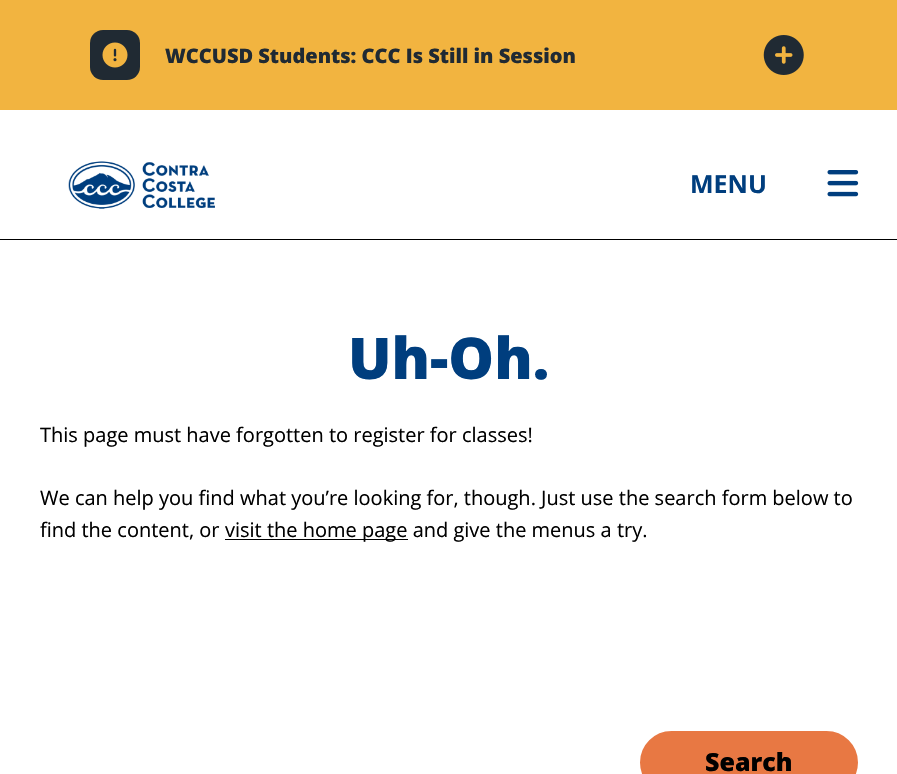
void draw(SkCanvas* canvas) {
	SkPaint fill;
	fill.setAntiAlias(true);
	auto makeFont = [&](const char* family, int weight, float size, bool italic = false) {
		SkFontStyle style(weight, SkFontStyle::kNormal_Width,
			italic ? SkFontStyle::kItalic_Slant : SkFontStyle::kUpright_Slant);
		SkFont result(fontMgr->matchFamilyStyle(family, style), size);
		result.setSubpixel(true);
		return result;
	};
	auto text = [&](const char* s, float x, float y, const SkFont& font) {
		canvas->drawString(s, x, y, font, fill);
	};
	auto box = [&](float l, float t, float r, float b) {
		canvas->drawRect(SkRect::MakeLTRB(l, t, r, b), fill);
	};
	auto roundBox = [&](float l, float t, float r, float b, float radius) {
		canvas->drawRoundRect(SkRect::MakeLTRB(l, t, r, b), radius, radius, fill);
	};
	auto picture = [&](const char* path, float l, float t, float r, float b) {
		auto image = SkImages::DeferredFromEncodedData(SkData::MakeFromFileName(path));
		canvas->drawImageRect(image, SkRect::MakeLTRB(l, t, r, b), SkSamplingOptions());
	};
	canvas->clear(0xFFFFFFFF);
	fill.setColor(0xFFF2B440);
	box(0, 0, 897, 110);
	fill.setColor(0xFF202A33);
	roundBox(90, 30, 140, 80, 13);
	picture("image0.png", 102, 42, 128, 68);
	picture("image1.png", 763, 35, 804, 75);
	fill.setColor(0xFF000000);
	box(0, 239, 897, 240);
	picture("image2.png", 68, 161, 215, 209);
	picture("image3.png", 827, 170, 859, 197);
	box(225, 539, 408, 540);
	fill.setColor(0xFFE87843);
	canvas->drawRoundRect(SkRect::MakeLTRB(641.5f, 732.5f, 856.5f, 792.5f), 30, 30, fill);
	fill.setStyle(SkPaint::kStroke_Style);
	fill.setStrokeWidth(3);
	canvas->drawRoundRect(SkRect::MakeLTRB(641.5f, 732.5f, 856.5f, 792.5f), 30, 30, fill);
	auto font1 = makeFont("Open Sans", 800, 20);
	fill.setStyle(SkPaint::kFill_Style);
	fill.setColor(0xFF202A33);
	text("WCCUSD Students: CCC Is Still in Session", 165, 63, font1);
	auto font2 = makeFont("Open Sans", 700, 25);
	fill.setColor(0xFF003E7E);
	text("MENU", 690, 193, font2);
	auto font3 = makeFont("Open Sans", 800, 57.5f);
	text("Uh-Oh.", 348, 379, font3);
	auto font4 = makeFont("Open Sans", 400, 20);
	fill.setColor(0xFF000000);
	text("This page must have forgotten to register for classes!", 40, 442, font4);
	text("We can help you find what you’re looking for, though. Just use the search form below to", 40, 505, font4);
	text("find the content, or", 40, 537, font4);
	text("visit the home page and give the menus a try.", 225, 537, font4);
	auto font5 = makeFont("Open Sans", 800, 25);
	text("Search", 705, 771, font5);
}
